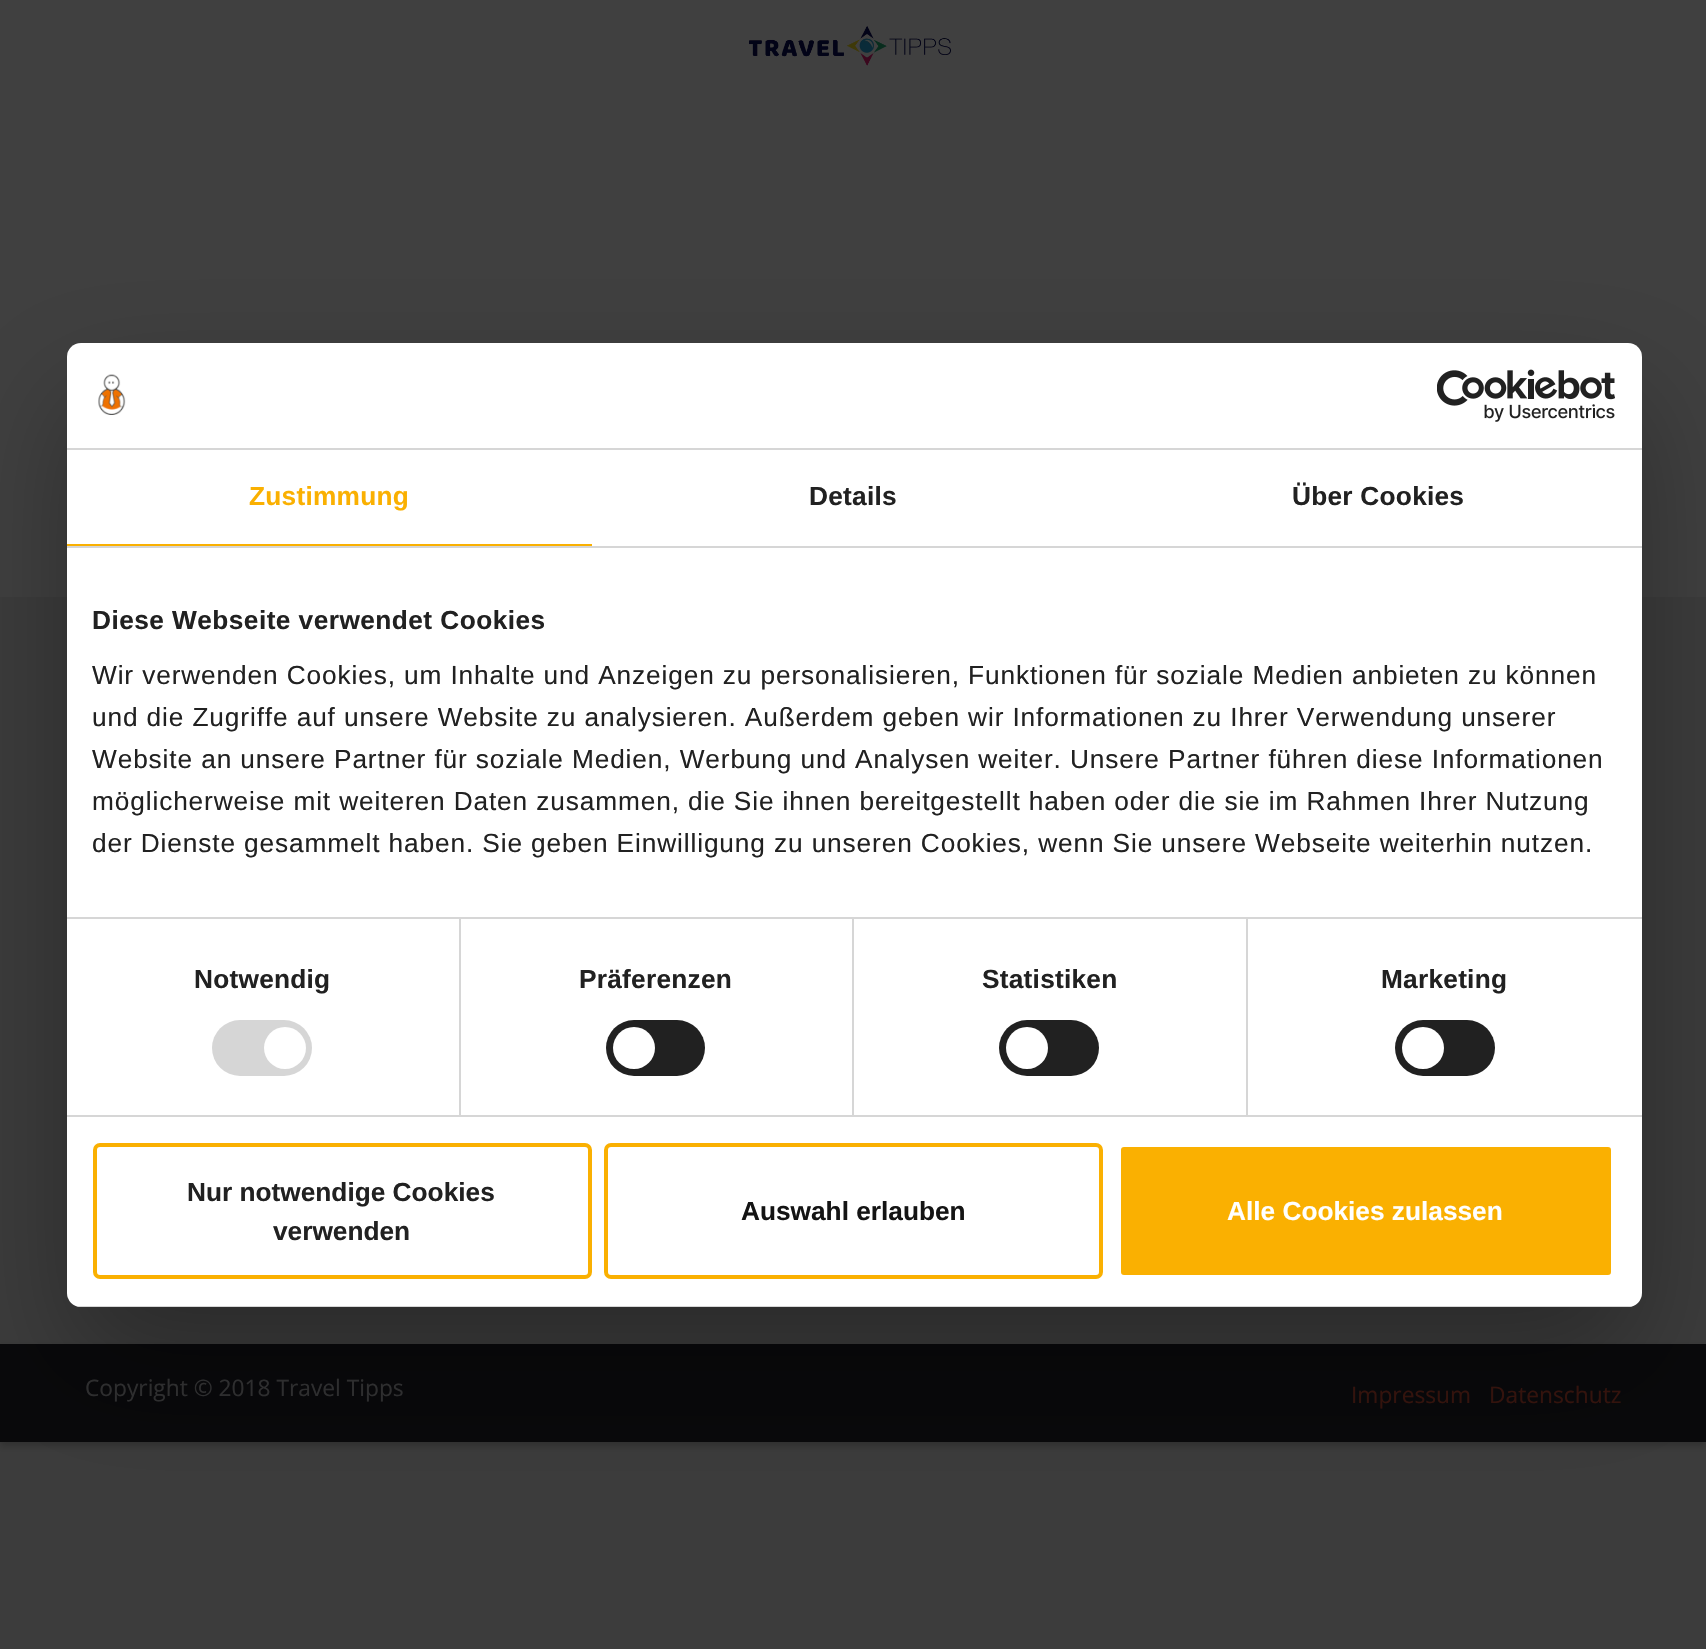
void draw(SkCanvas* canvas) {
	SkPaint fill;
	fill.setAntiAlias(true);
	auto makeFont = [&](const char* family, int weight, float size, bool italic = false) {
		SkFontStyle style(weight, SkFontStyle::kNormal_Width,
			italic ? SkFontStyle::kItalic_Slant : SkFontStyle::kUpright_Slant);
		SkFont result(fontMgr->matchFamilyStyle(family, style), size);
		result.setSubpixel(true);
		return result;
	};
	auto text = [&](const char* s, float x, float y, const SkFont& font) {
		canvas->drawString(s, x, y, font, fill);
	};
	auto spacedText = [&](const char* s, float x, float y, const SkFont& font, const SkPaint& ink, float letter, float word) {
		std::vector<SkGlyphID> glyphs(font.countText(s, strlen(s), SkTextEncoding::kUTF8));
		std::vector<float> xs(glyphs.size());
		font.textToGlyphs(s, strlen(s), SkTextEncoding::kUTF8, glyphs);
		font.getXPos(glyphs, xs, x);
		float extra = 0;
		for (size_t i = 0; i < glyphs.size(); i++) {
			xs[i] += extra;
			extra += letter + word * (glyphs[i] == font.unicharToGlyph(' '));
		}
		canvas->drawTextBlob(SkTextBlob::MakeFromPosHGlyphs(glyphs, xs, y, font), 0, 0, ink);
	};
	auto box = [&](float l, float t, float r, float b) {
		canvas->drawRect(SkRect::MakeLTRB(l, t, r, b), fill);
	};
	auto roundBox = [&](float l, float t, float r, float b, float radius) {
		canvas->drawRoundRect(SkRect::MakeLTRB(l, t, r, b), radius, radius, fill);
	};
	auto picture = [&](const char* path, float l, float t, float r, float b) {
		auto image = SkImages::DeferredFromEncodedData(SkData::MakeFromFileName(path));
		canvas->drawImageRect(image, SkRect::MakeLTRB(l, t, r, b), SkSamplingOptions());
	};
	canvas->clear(0xFF3C3C3C);
	fill.setColor(0xFF404040);
	box(0, 0, 1706, 597);
	fill.setColor(0x33000000);
	fill.setMaskFilter(SkMaskFilter::MakeBlur(kNormal_SkBlurStyle, 3.5f));
	canvas->drawRect(SkRect::MakeLTRB(0, 1348, 1706, 1446), fill);
	fill.setMaskFilter(nullptr);
	fill.setColor(0xFF09090B);
	box(0, 1344, 1706, 1442);
	fill.setColor(0x4D000000);
	fill.setMaskFilter(SkMaskFilter::MakeBlur(kNormal_SkBlurStyle, 59.5f));
	canvas->drawRoundRect(SkRect::MakeLTRB(67, 399, 1642, 1363), 14, 14, fill);
	fill.setMaskFilter(nullptr);
	fill.setColor(0xFFFFFFFF);
	roundBox(67, 343, 1642, 1307, 14);
	fill.setColor(0xFFD6D6D6);
	box(67, 448, 1642, 450);
	picture("image0.png", 98, 374, 126, 415);
	picture("image1.png", 1437, 369, 1615, 422);
	box(67, 546, 1642, 548);
	fill.setColor(0xFFFAB001);
	box(67, 544, 592, 546);
	fill.setColor(0xFFD6D6D6);
	box(67, 917, 1642, 919);
	box(67, 1115, 1642, 1117);
	box(459, 919, 461, 1115);
	roundBox(212, 1020, 312, 1076, 28);
	fill.setColor(0xFFFFFFFF);
	canvas->drawCircle(285, 1048, 21, fill);
	fill.setColor(0xFFD6D6D6);
	box(852, 919, 854, 1115);
	fill.setColor(0xFF212121);
	roundBox(606, 1020, 705, 1076, 28);
	fill.setColor(0xFFFFFFFF);
	canvas->drawCircle(634, 1048, 21, fill);
	fill.setColor(0xFFD6D6D6);
	box(1246, 919, 1248, 1115);
	fill.setColor(0xFF212121);
	roundBox(999, 1020, 1099, 1076, 28);
	fill.setColor(0xFFFFFFFF);
	canvas->drawCircle(1027, 1048, 21, fill);
	fill.setColor(0xFF212121);
	roundBox(1395, 1020, 1495, 1076, 28);
	fill.setColor(0xFFFFFFFF);
	canvas->drawCircle(1423, 1048, 21, fill);
	canvas->save();
	canvas->clipPath(SkPathBuilder().moveTo(81, 343).lineTo(1628, 343).cubicTo(1635.5f, 343, 1642, 349.5f, 1642, 357).lineTo(1642, 1293).cubicTo(1642, 1300.5f, 1635.5f, 1307, 1628, 1307).lineTo(81, 1307).cubicTo(73.5f, 1307, 67, 1300.5f, 67, 1293).lineTo(67, 357).cubicTo(67, 349.5f, 73.5f, 343, 81, 343).close().detach(), true);
	fill.setColor(0xFFD6D6D6);
	box(76, 1306, 1633, 1307);
	canvas->restore();
	fill.setStyle(SkPaint::kStroke_Style);
	fill.setStrokeWidth(4);
	fill.setColor(0xFFFAB001);
	canvas->drawRoundRect(SkRect::MakeLTRB(95, 1145, 590, 1277), 5, 5, fill);
	canvas->drawRoundRect(SkRect::MakeLTRB(606, 1145, 1101, 1277), 5, 5, fill);
	fill.setStyle(SkPaint::kFill_Style);
	canvas->drawRoundRect(SkRect::MakeLTRB(1119, 1145, 1613, 1277), 5, 5, fill);
	fill.setStyle(SkPaint::kStroke_Style);
	fill.setColor(0xFFFFFFFF);
	canvas->drawRoundRect(SkRect::MakeLTRB(1119, 1145, 1613, 1277), 5, 5, fill);
	picture("image2.png", 749, 26, 951, 66);
	auto font1 = makeFont("Liberation Sans", 700, 26.25f);
	fill.setStyle(SkPaint::kFill_Style);
	fill.setColor(0xFFFAB001);
	spacedText("Zustimmung", 249, 505, font1, fill, 0.25f, 0);
	fill.setColor(0xFF212121);
	spacedText("Details", 809, 505, font1, fill, 0.25f, 0);
	spacedText("Über Cookies", 1292, 505, font1, fill, 0.25f, 0);
	spacedText("Diese Webseite verwendet Cookies", 92, 629, font1, fill, 0.45f, 0);
	auto font2 = makeFont("Liberation Sans", 400, 26.25f);
	spacedText("Wir verwenden Cookies, um Inhalte und Anzeigen zu personalisieren, Funktionen für soziale Medien anbieten zu können", 92, 684, font2, fill, 0.88f, 0);
	spacedText("und die Zugriffe auf unsere Website zu analysieren. Außerdem geben wir Informationen zu Ihrer Verwendung unserer", 92, 726, font2, fill, 0.88f, 0);
	spacedText("Website an unsere Partner für soziale Medien, Werbung und Analysen weiter. Unsere Partner führen diese Informationen", 92, 768, font2, fill, 0.88f, 0);
	spacedText("möglicherweise mit weiteren Daten zusammen, die Sie ihnen bereitgestellt haben oder die sie im Rahmen Ihrer Nutzung", 92, 810, font2, fill, 0.88f, 0);
	spacedText("der Dienste gesammelt haben. Sie geben Einwilligung zu unseren Cookies, wenn Sie unsere Webseite weiterhin nutzen.", 92, 852, font2, fill, 0.88f, 0);
	spacedText("Notwendig", 194, 988, font1, fill, 0.25f, 0);
	spacedText("Präferenzen", 579, 988, font1, fill, 0.25f, 0);
	spacedText("Statistiken", 982, 988, font1, fill, 0.25f, 0);
	spacedText("Marketing", 1381, 988, font1, fill, 0.25f, 0);
	text("Nur notwendige Cookies", 187, 1201, font1);
	text("verwenden", 273, 1240, font1);
	fill.setColor(0xFF141414);
	text("Auswahl erlauben", 741, 1220, font1);
	fill.setColor(0xFFFFFFFF);
	text("Alle Cookies zulassen", 1227, 1220, font1);
	auto font3 = makeFont("Open Sans", 400, 22.75f);
	fill.setColor(0xFF2E2E2F);
	text("Copyright © 2018 Travel Tipps", 85, 1396, font3);
	fill.setColor(0xFF34130D);
	text("Impressum", 1351, 1403, font3);
	text("Datenschutz", 1489, 1403, font3);
}
